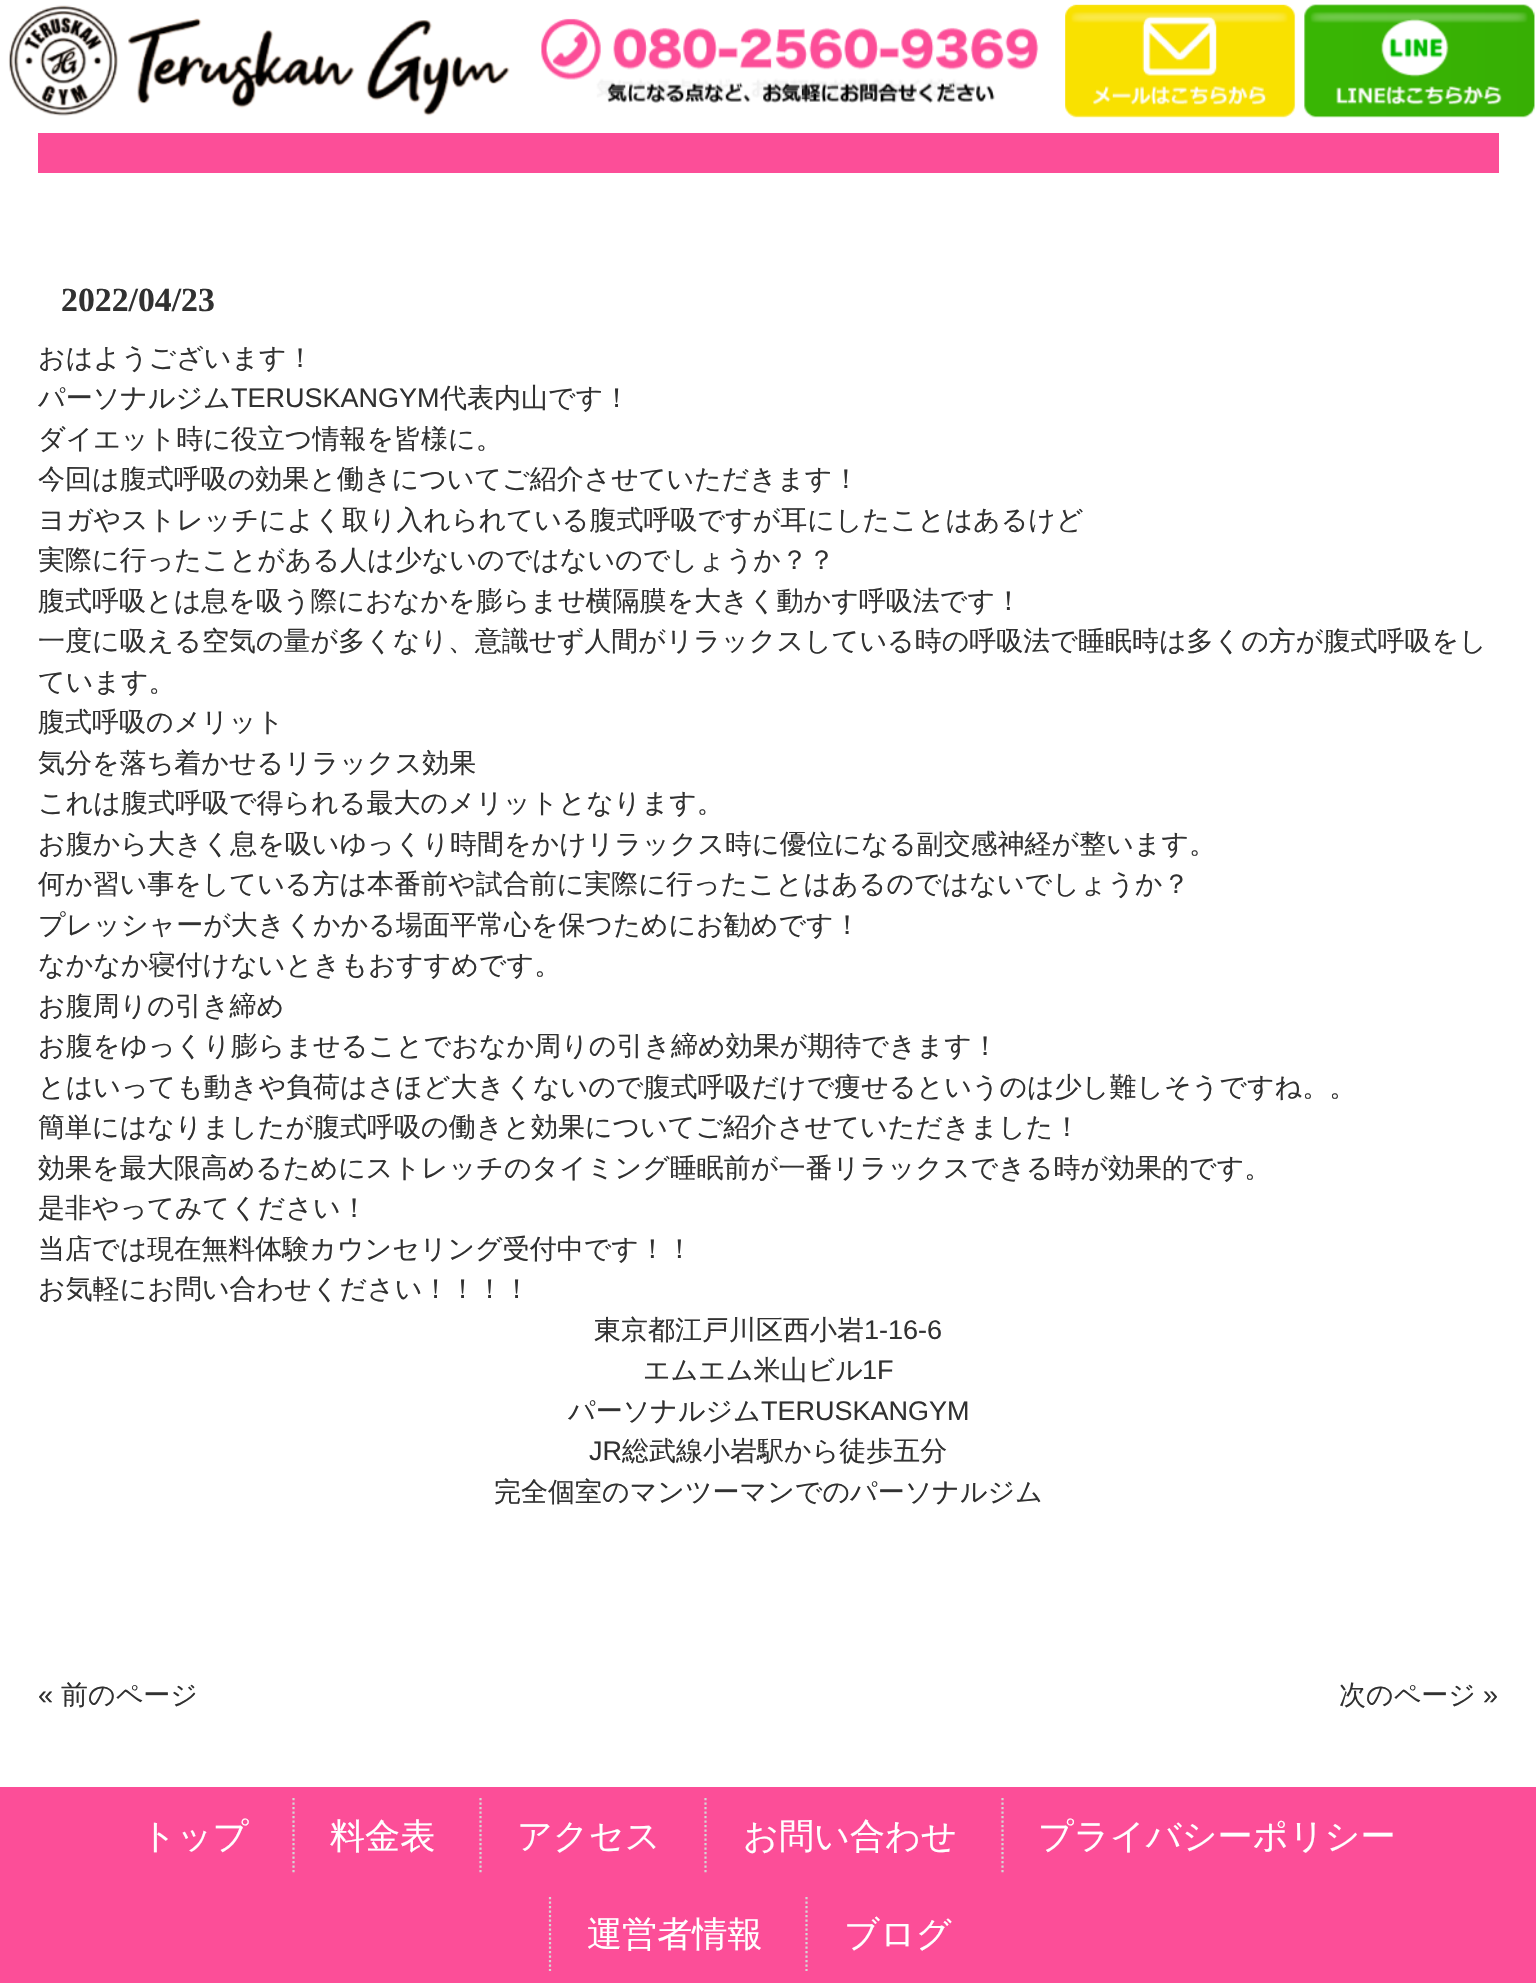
void draw(SkCanvas* canvas) {
	SkPaint fill;
	fill.setAntiAlias(true);
	auto makeFont = [&](const char* family, int weight, float size, bool italic = false) {
		SkFontStyle style(weight, SkFontStyle::kNormal_Width,
			italic ? SkFontStyle::kItalic_Slant : SkFontStyle::kUpright_Slant);
		SkFont result(fontMgr->matchFamilyStyle(family, style), size);
		result.setSubpixel(true);
		return result;
	};
	auto text = [&](const char* s, float x, float y, const SkFont& font) {
		canvas->drawString(s, x, y, font, fill);
	};
	auto box = [&](float l, float t, float r, float b) {
		canvas->drawRect(SkRect::MakeLTRB(l, t, r, b), fill);
	};
	auto picture = [&](const char* path, float l, float t, float r, float b) {
		auto image = SkImages::DeferredFromEncodedData(SkData::MakeFromFileName(path));
		canvas->drawImageRect(image, SkRect::MakeLTRB(l, t, r, b), SkSamplingOptions());
	};
	canvas->clear(0xFFFFFFFF);
	picture("image0.png", 8, 5, 510, 116);
	picture("image1.png", 541, 4, 1296, 118);
	picture("image2.png", 1304, 4, 1535, 118);
	fill.setColor(0xFFFC4E98);
	box(38, 133, 1499, 173);
	box(0, 1787, 1536, 1983);
	fill.setStyle(SkPaint::kStroke_Style);
	fill.setStrokeWidth(2.2f);
	fill.setColor(0xFFD5D5D5);
	fill.setPathEffect(SkDashPathEffect::Make({{2.25f, 2.25f}}, 0));
	canvas->drawPath(SkPathBuilder().moveTo(293.5f, 1798).lineTo(293.5f, 1874).detach(), fill);
	fill.setPathEffect(nullptr);
	fill.setPathEffect(SkDashPathEffect::Make({{2.25f, 2.25f}}, 0));
	canvas->drawPath(SkPathBuilder().moveTo(480.5f, 1798).lineTo(480.5f, 1874).detach(), fill);
	fill.setPathEffect(nullptr);
	fill.setPathEffect(SkDashPathEffect::Make({{2.25f, 2.25f}}, 0));
	canvas->drawPath(SkPathBuilder().moveTo(705.5f, 1798).lineTo(705.5f, 1874).detach(), fill);
	fill.setPathEffect(nullptr);
	fill.setPathEffect(SkDashPathEffect::Make({{2.25f, 2.25f}}, 0));
	canvas->drawPath(SkPathBuilder().moveTo(1002.5f, 1798).lineTo(1002.5f, 1874).detach(), fill);
	fill.setPathEffect(nullptr);
	fill.setPathEffect(SkDashPathEffect::Make({{2.25f, 2.25f}}, 0));
	canvas->drawPath(SkPathBuilder().moveTo(550, 1897).lineTo(550, 1971).detach(), fill);
	fill.setPathEffect(nullptr);
	fill.setPathEffect(SkDashPathEffect::Make({{2.25f, 2.25f}}, 0));
	canvas->drawPath(SkPathBuilder().moveTo(806.5f, 1897).lineTo(806.5f, 1971).detach(), fill);
	fill.setPathEffect(nullptr);
	auto font1 = makeFont("Liberation Serif", 700, 33.75f);
	fill.setStyle(SkPaint::kFill_Style);
	fill.setColor(0xFF313131);
	text("2022/04/23", 61, 311, font1);
	auto font2 = makeFont("WenQuanYi Zen Hei", 500, 27);
	text("おはようございます！", 38, 367, font2);
	text("パーソナルジム", 38, 407, font2);
	auto font3 = makeFont("Liberation Sans", 400, 27);
	text("TERUSKANGYM", 231, 407, font3);
	text("代表内山です！", 440, 407, font2);
	text("ダイエット時に役立つ情報を皆様に。", 38, 448, font2);
	text("今回は腹式呼吸の効果と働きについてご紹介させていただきます！", 38, 488, font2);
	text("ヨガやストレッチによく取り入れられている腹式呼吸ですが耳にしたことはあるけど", 38, 529, font2);
	text("実際に行ったことがある人は少ないのではないのでしょうか？？", 38, 569, font2);
	text("腹式呼吸とは息を吸う際におなかを膨らませ横隔膜を大きく動かす呼吸法です！", 38, 610, font2);
	text("一度に吸える空気の量が多くなり、意識せず人間がリラックスしている時の呼吸法で睡眠時は多くの方が腹式呼吸をし", 38, 650, font2);
	text("ています。", 38, 691, font2);
	text("腹式呼吸のメリット", 38, 731, font2);
	text("気分を落ち着かせるリラックス効果", 38, 772, font2);
	text("これは腹式呼吸で得られる最大のメリットとなります。", 38, 812, font2);
	text("お腹から大きく息を吸いゆっくり時間をかけリラックス時に優位になる副交感神経が整います。", 38, 853, font2);
	text("何か習い事をしている方は本番前や試合前に実際に行ったことはあるのではないでしょうか？", 38, 893, font2);
	text("プレッシャーが大きくかかる場面平常心を保つためにお勧めです！", 38, 934, font2);
	text("なかなか寝付けないときもおすすめです。", 38, 974, font2);
	text("お腹周りの引き締め", 38, 1015, font2);
	text("お腹をゆっくり膨らませることでおなか周りの引き締め効果が期待できます！", 38, 1055, font2);
	text("とはいっても動きや負荷はさほど大きくないので腹式呼吸だけで痩せるというのは少し難しそうですね。。", 38, 1096, font2);
	text("簡単にはなりましたが腹式呼吸の働きと効果についてご紹介させていただきました！", 38, 1136, font2);
	text("効果を最大限高めるためにストレッチのタイミング睡眠前が一番リラックスできる時が効果的です。", 38, 1177, font2);
	text("是非やってみてください！", 38, 1217, font2);
	text("当店では現在無料体験カウンセリング受付中です！！", 38, 1258, font2);
	text("お気軽にお問い合わせください！！！！", 38, 1298, font2);
	text("東京都江戸川区西小岩", 594, 1339, font2);
	text("1-16-6", 864, 1339, font3);
	text("エムエム米山ビル", 643, 1379, font2);
	text("1F", 862, 1379, font3);
	text("パーソナルジム", 568, 1420, font2);
	text("TERUSKANGYM", 761, 1420, font3);
	text("JR", 589, 1460, font3);
	text("総武線小岩駅から徒歩五分", 622, 1460, font2);
	text("完全個室のマンツーマンでのパーソナルジム", 494, 1501, font2);
	text("«", 38, 1704, font3);
	text("前のページ", 61, 1704, font2);
	text("次のページ", 1339, 1704, font2);
	text("»", 1483, 1704, font3);
	auto font4 = makeFont("WenQuanYi Zen Hei", 500, 35.1f);
	fill.setColor(0xFFFFFFFF);
	text("トップ", 141, 1848, font4);
	text("料金表", 330, 1848, font4);
	text("アクセス", 517, 1848, font4);
	text("お問い合わせ", 743, 1848, font4);
	text("プライバシーポリシー", 1038, 1848, font4);
	text("運営者情報", 587, 1946, font4);
	text("ブログ", 844, 1946, font4);
}
